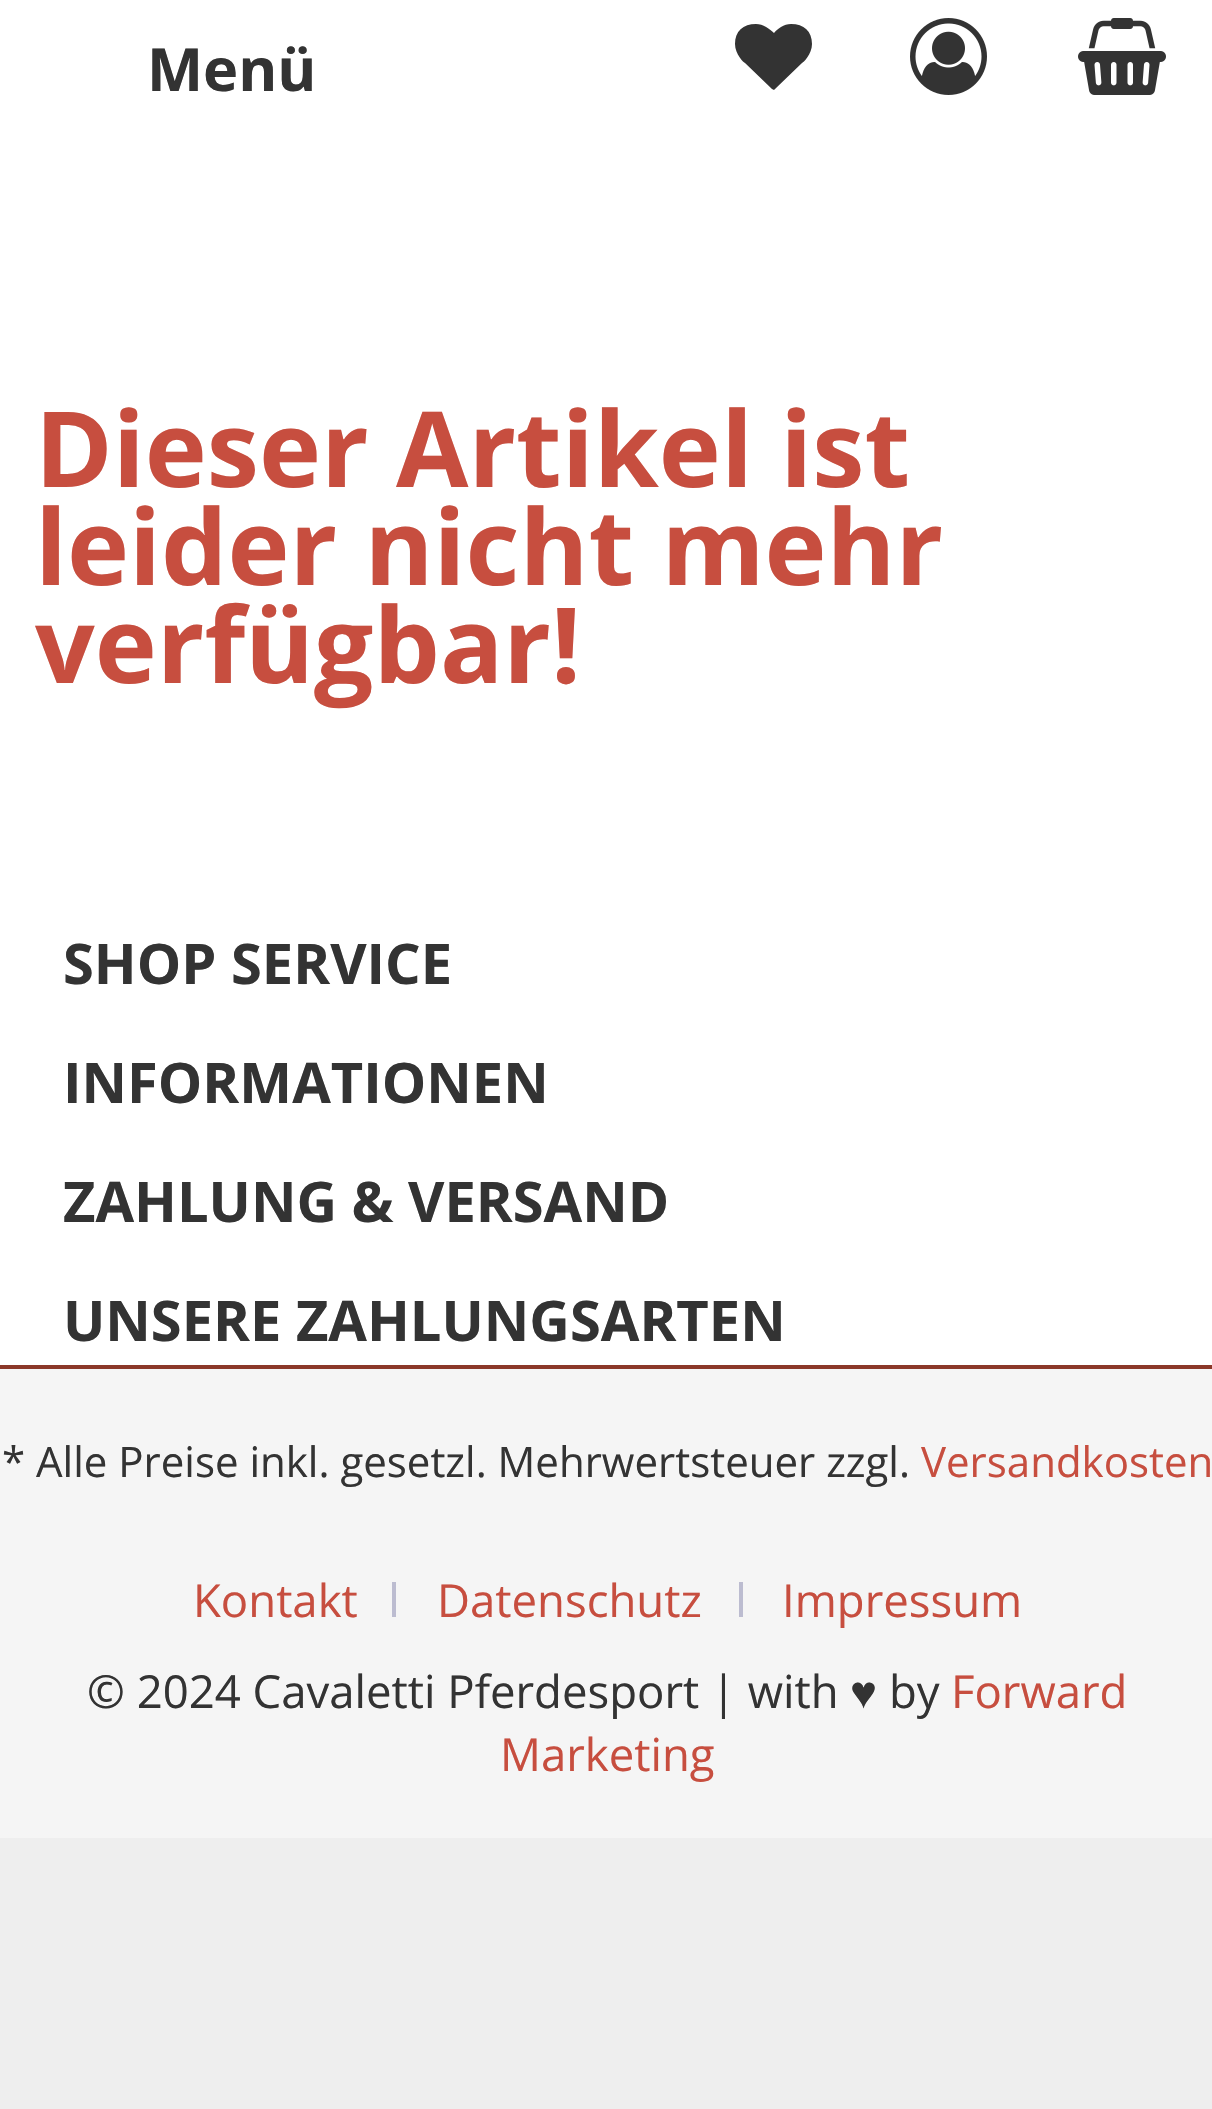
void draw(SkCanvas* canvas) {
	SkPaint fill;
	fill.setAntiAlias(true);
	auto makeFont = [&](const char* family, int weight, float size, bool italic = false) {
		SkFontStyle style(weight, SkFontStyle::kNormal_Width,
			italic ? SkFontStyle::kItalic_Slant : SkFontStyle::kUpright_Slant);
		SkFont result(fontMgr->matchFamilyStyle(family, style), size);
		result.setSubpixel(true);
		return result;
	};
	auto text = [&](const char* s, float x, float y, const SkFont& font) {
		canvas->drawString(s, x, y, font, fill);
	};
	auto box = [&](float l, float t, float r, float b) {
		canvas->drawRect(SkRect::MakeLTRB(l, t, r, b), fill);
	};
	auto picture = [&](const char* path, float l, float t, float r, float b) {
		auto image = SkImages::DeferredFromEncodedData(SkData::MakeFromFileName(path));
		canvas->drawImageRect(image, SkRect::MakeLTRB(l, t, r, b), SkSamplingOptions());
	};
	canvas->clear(0xFFEEEEEE);
	fill.setColor(0xFFFFFFFF);
	box(0, 0, 1212, 1365);
	fill.setColor(0xFF333333);
	canvas->drawPath(SkPathBuilder().moveTo(774, 90).lineTo(775, 89).lineTo(802, 63).cubicTo(803, 63, 812, 54, 812, 44).cubicTo(812, 31, 804, 24, 791, 24).cubicTo(784, 24, 777, 29, 774, 33).cubicTo(770, 29, 763, 24, 756, 24).cubicTo(743, 24, 735, 31, 735, 44).cubicTo(735, 54, 744, 63, 745, 63).lineTo(772, 89).close().detach(), fill);
	picture("image0.png", 910, 18, 987, 95);
	picture("image1.png", 1078, 18, 1166, 95);
	fill.setColor(0xFFF5F5F5);
	box(0, 1369, 1212, 1838);
	fill.setColor(0xFF8B3829);
	box(0, 1365, 1212, 1369);
	fill.setColor(0xFFBCBCD0);
	box(392, 1582, 396, 1617);
	box(739, 1582, 743, 1617);
	auto font1 = makeFont("Open Sans", 700, 59.5f);
	fill.setColor(0xFF333333);
	text("Menü", 147, 91, font1);
	auto font2 = makeFont("Open Sans", 700, 105);
	fill.setColor(0xFFC74E3F);
	text("Dieser Artikel ist", 35, 487, font2);
	text("leider nicht mehr", 35, 585, font2);
	text("verfügbar!", 35, 683, font2);
	auto font3 = makeFont("Open Sans", 700, 56);
	fill.setColor(0xFF333333);
	text("SHOP SERVICE", 63, 984, font3);
	text("INFORMATIONEN", 63, 1103, font3);
	text("ZAHLUNG & VERSAND", 63, 1222, font3);
	text("UNSERE ZAHLUNGSARTEN", 63, 1341, font3);
	auto font4 = makeFont("Open Sans", 400, 42);
	text("* Alle Preise inkl. gesetzl. Mehrwertsteuer zzgl.", 2, 1477, font4);
	fill.setColor(0xFFC74E3F);
	text("Versandkosten", 921, 1477, font4);
	auto font5 = makeFont("Open Sans", 400, 45.5f);
	text("Kontakt", 193, 1617, font5);
	text("Datenschutz", 437, 1617, font5);
	text("Impressum", 782, 1617, font5);
	fill.setColor(0xFF333333);
	text("© 2024 Cavaletti Pferdesport | with", 87, 1708, font5);
	auto font6 = makeFont("Liberation Sans", 400, 45.5f);
	text("♥", 850, 1708, font6);
	text("by", 889, 1708, font5);
	fill.setColor(0xFFC74E3F);
	text("Forward", 951, 1708, font5);
	text("Marketing", 500, 1771, font5);
}
